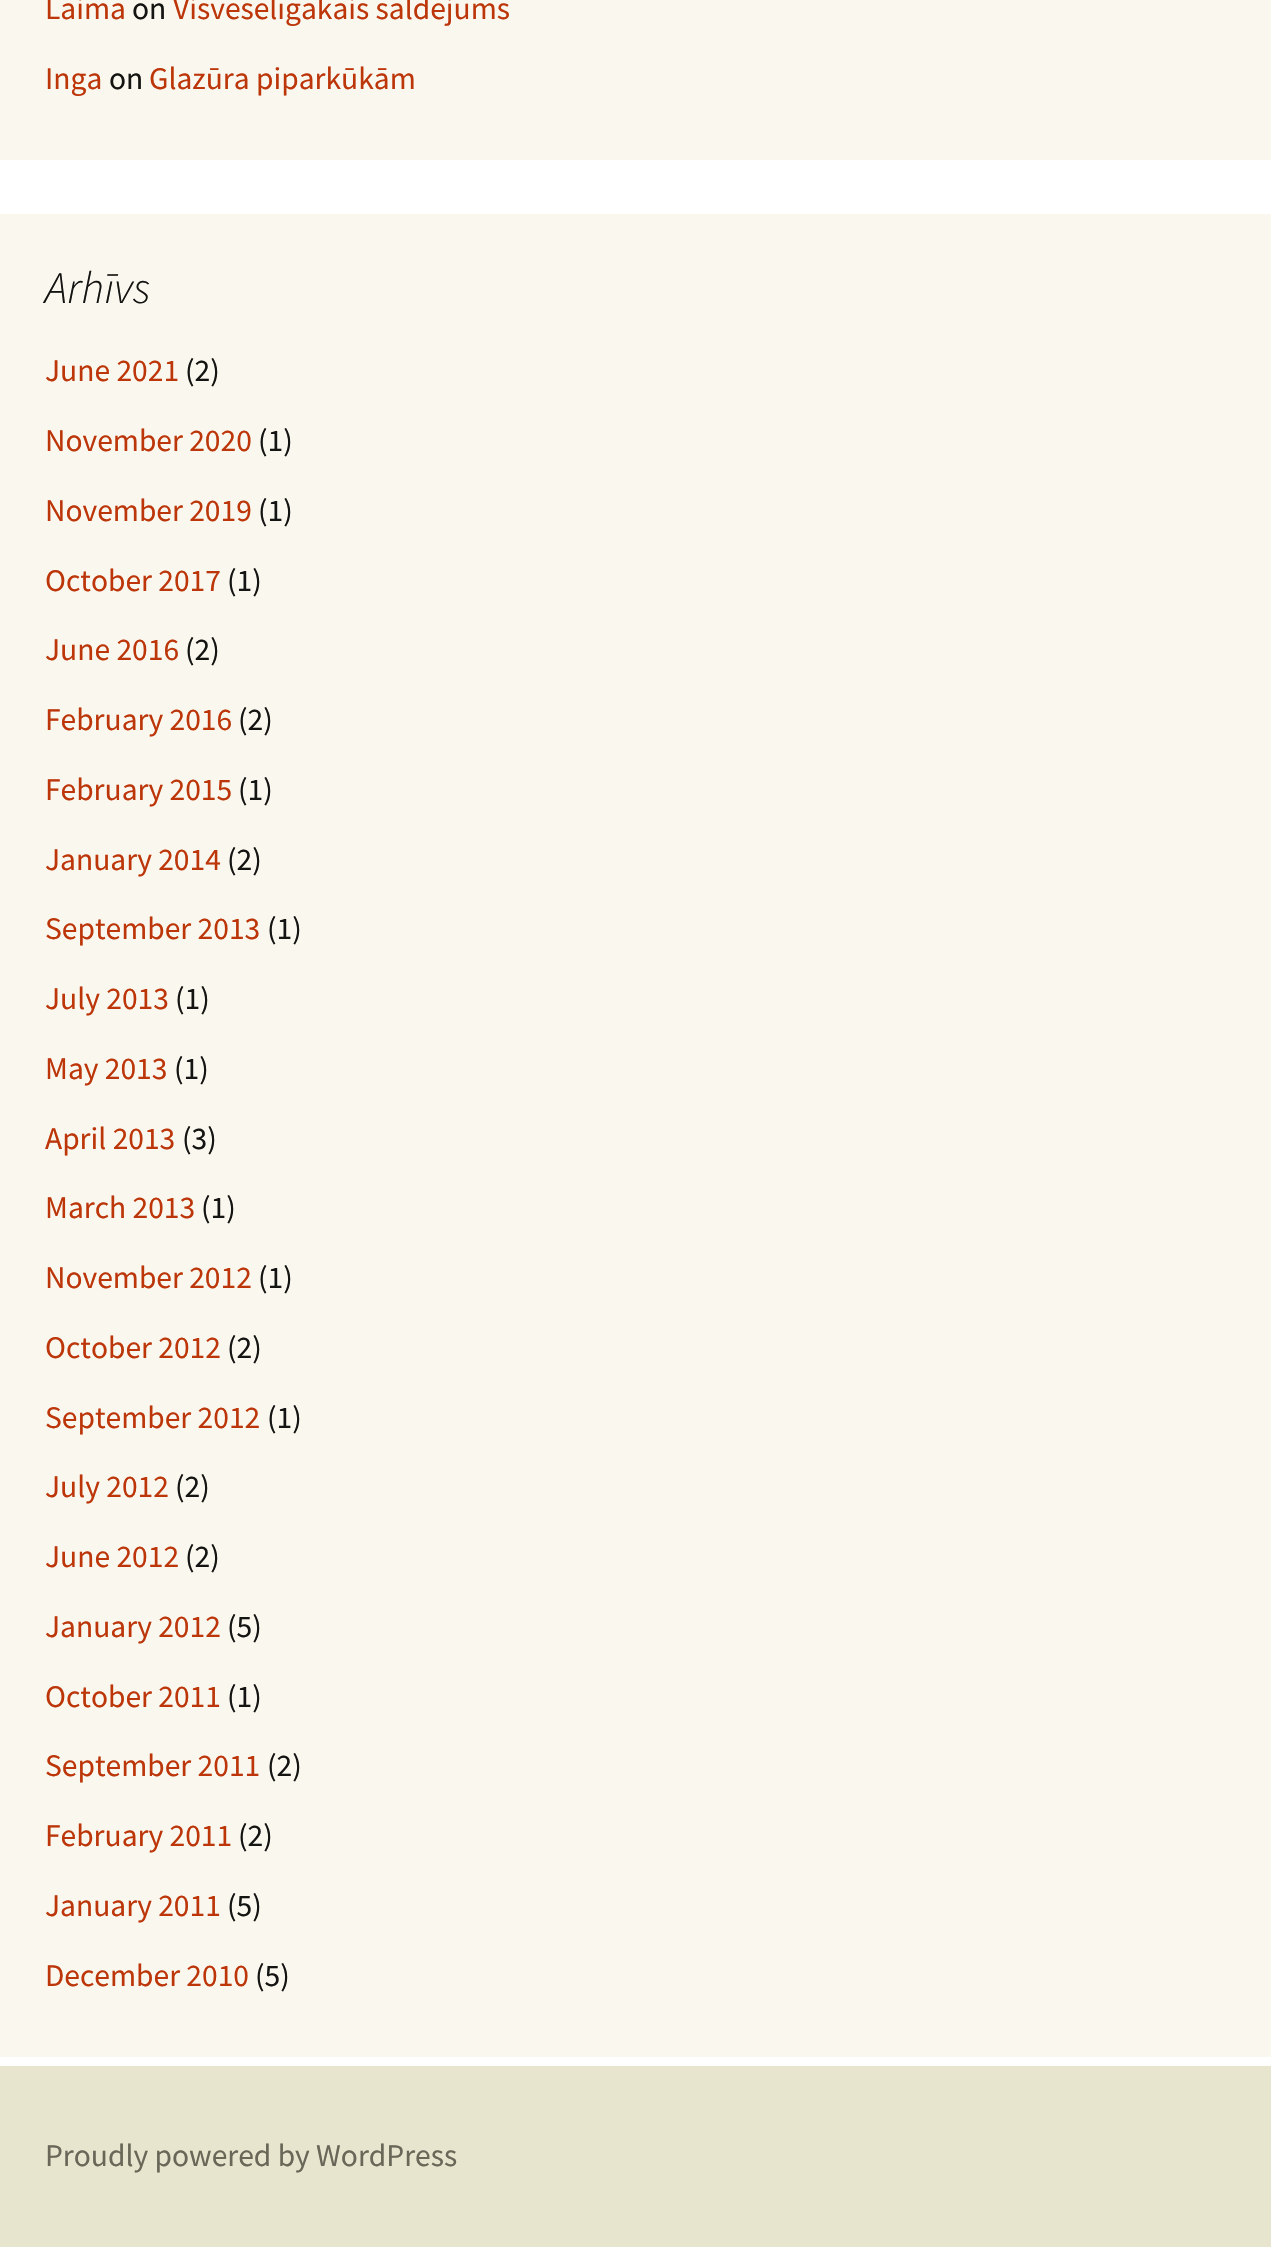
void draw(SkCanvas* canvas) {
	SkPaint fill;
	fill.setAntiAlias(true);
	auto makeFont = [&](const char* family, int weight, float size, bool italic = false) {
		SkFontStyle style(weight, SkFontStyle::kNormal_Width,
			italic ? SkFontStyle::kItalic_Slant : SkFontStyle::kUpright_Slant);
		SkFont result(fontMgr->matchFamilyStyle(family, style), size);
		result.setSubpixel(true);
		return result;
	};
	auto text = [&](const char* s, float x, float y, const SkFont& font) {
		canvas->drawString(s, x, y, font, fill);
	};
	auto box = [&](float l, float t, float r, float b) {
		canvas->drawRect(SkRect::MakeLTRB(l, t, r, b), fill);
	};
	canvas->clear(0xFFFFFFFF);
	fill.setColor(0xFFFAF8EE);
	box(0, 0, 1271, 160);
	box(0, 214, 1271, 2057);
	fill.setColor(0xFFE8E5CE);
	box(0, 2066, 1271, 2247);
	auto font1 = makeFont("Source Sans Pro", 400, 31.5f);
	fill.setColor(0xFFBC360A);
	text("Laima", 45, 19, font1);
	fill.setColor(0xFF141412);
	text("on", 132, 19, font1);
	fill.setColor(0xFFBC360A);
	text("Visveselīgākais saldējums", 173, 19, font1);
	text("Inga", 45, 89, font1);
	fill.setColor(0xFF141412);
	text("on", 109, 89, font1);
	fill.setColor(0xFFBC360A);
	text("Glazūra piparkūkām", 149, 89, font1);
	auto font2 = makeFont("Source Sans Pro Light", 300, 45, true);
	fill.setColor(0xFF141412);
	text("Arhīvs", 45, 303, font2);
	fill.setColor(0xFFBC360A);
	text("June 2021", 45, 381, font1);
	fill.setColor(0xFF141412);
	text("(2)", 185, 381, font1);
	fill.setColor(0xFFBC360A);
	text("November 2020", 45, 451, font1);
	fill.setColor(0xFF141412);
	text("(1)", 258, 451, font1);
	fill.setColor(0xFFBC360A);
	text("November 2019", 45, 521, font1);
	fill.setColor(0xFF141412);
	text("(1)", 258, 521, font1);
	fill.setColor(0xFFBC360A);
	text("October 2017", 45, 591, font1);
	fill.setColor(0xFF141412);
	text("(1)", 227, 591, font1);
	fill.setColor(0xFFBC360A);
	text("June 2016", 45, 660, font1);
	fill.setColor(0xFF141412);
	text("(2)", 185, 660, font1);
	fill.setColor(0xFFBC360A);
	text("February 2016", 45, 730, font1);
	fill.setColor(0xFF141412);
	text("(2)", 238, 730, font1);
	fill.setColor(0xFFBC360A);
	text("February 2015", 45, 800, font1);
	fill.setColor(0xFF141412);
	text("(1)", 238, 800, font1);
	fill.setColor(0xFFBC360A);
	text("January 2014", 45, 870, font1);
	fill.setColor(0xFF141412);
	text("(2)", 227, 870, font1);
	fill.setColor(0xFFBC360A);
	text("September 2013", 45, 939, font1);
	fill.setColor(0xFF141412);
	text("(1)", 267, 939, font1);
	fill.setColor(0xFFBC360A);
	text("July 2013", 45, 1009, font1);
	fill.setColor(0xFF141412);
	text("(1)", 175, 1009, font1);
	fill.setColor(0xFFBC360A);
	text("May 2013", 45, 1079, font1);
	fill.setColor(0xFF141412);
	text("(1)", 174, 1079, font1);
	fill.setColor(0xFFBC360A);
	text("April 2013", 45, 1149, font1);
	fill.setColor(0xFF141412);
	text("(3)", 182, 1149, font1);
	fill.setColor(0xFFBC360A);
	text("March 2013", 45, 1218, font1);
	fill.setColor(0xFF141412);
	text("(1)", 201, 1218, font1);
	fill.setColor(0xFFBC360A);
	text("November 2012", 45, 1288, font1);
	fill.setColor(0xFF141412);
	text("(1)", 258, 1288, font1);
	fill.setColor(0xFFBC360A);
	text("October 2012", 45, 1358, font1);
	fill.setColor(0xFF141412);
	text("(2)", 227, 1358, font1);
	fill.setColor(0xFFBC360A);
	text("September 2012", 45, 1428, font1);
	fill.setColor(0xFF141412);
	text("(1)", 267, 1428, font1);
	fill.setColor(0xFFBC360A);
	text("July 2012", 45, 1497, font1);
	fill.setColor(0xFF141412);
	text("(2)", 175, 1497, font1);
	fill.setColor(0xFFBC360A);
	text("June 2012", 45, 1567, font1);
	fill.setColor(0xFF141412);
	text("(2)", 185, 1567, font1);
	fill.setColor(0xFFBC360A);
	text("January 2012", 45, 1637, font1);
	fill.setColor(0xFF141412);
	text("(5)", 227, 1637, font1);
	fill.setColor(0xFFBC360A);
	text("October 2011", 45, 1707, font1);
	fill.setColor(0xFF141412);
	text("(1)", 227, 1707, font1);
	fill.setColor(0xFFBC360A);
	text("September 2011", 45, 1776, font1);
	fill.setColor(0xFF141412);
	text("(2)", 267, 1776, font1);
	fill.setColor(0xFFBC360A);
	text("February 2011", 45, 1846, font1);
	fill.setColor(0xFF141412);
	text("(2)", 238, 1846, font1);
	fill.setColor(0xFFBC360A);
	text("January 2011", 45, 1916, font1);
	fill.setColor(0xFF141412);
	text("(5)", 227, 1916, font1);
	fill.setColor(0xFFBC360A);
	text("December 2010", 45, 1986, font1);
	fill.setColor(0xFF141412);
	text("(5)", 255, 1986, font1);
	fill.setColor(0xFF686758);
	text("Proudly powered by WordPress", 45, 2166, font1);
}
